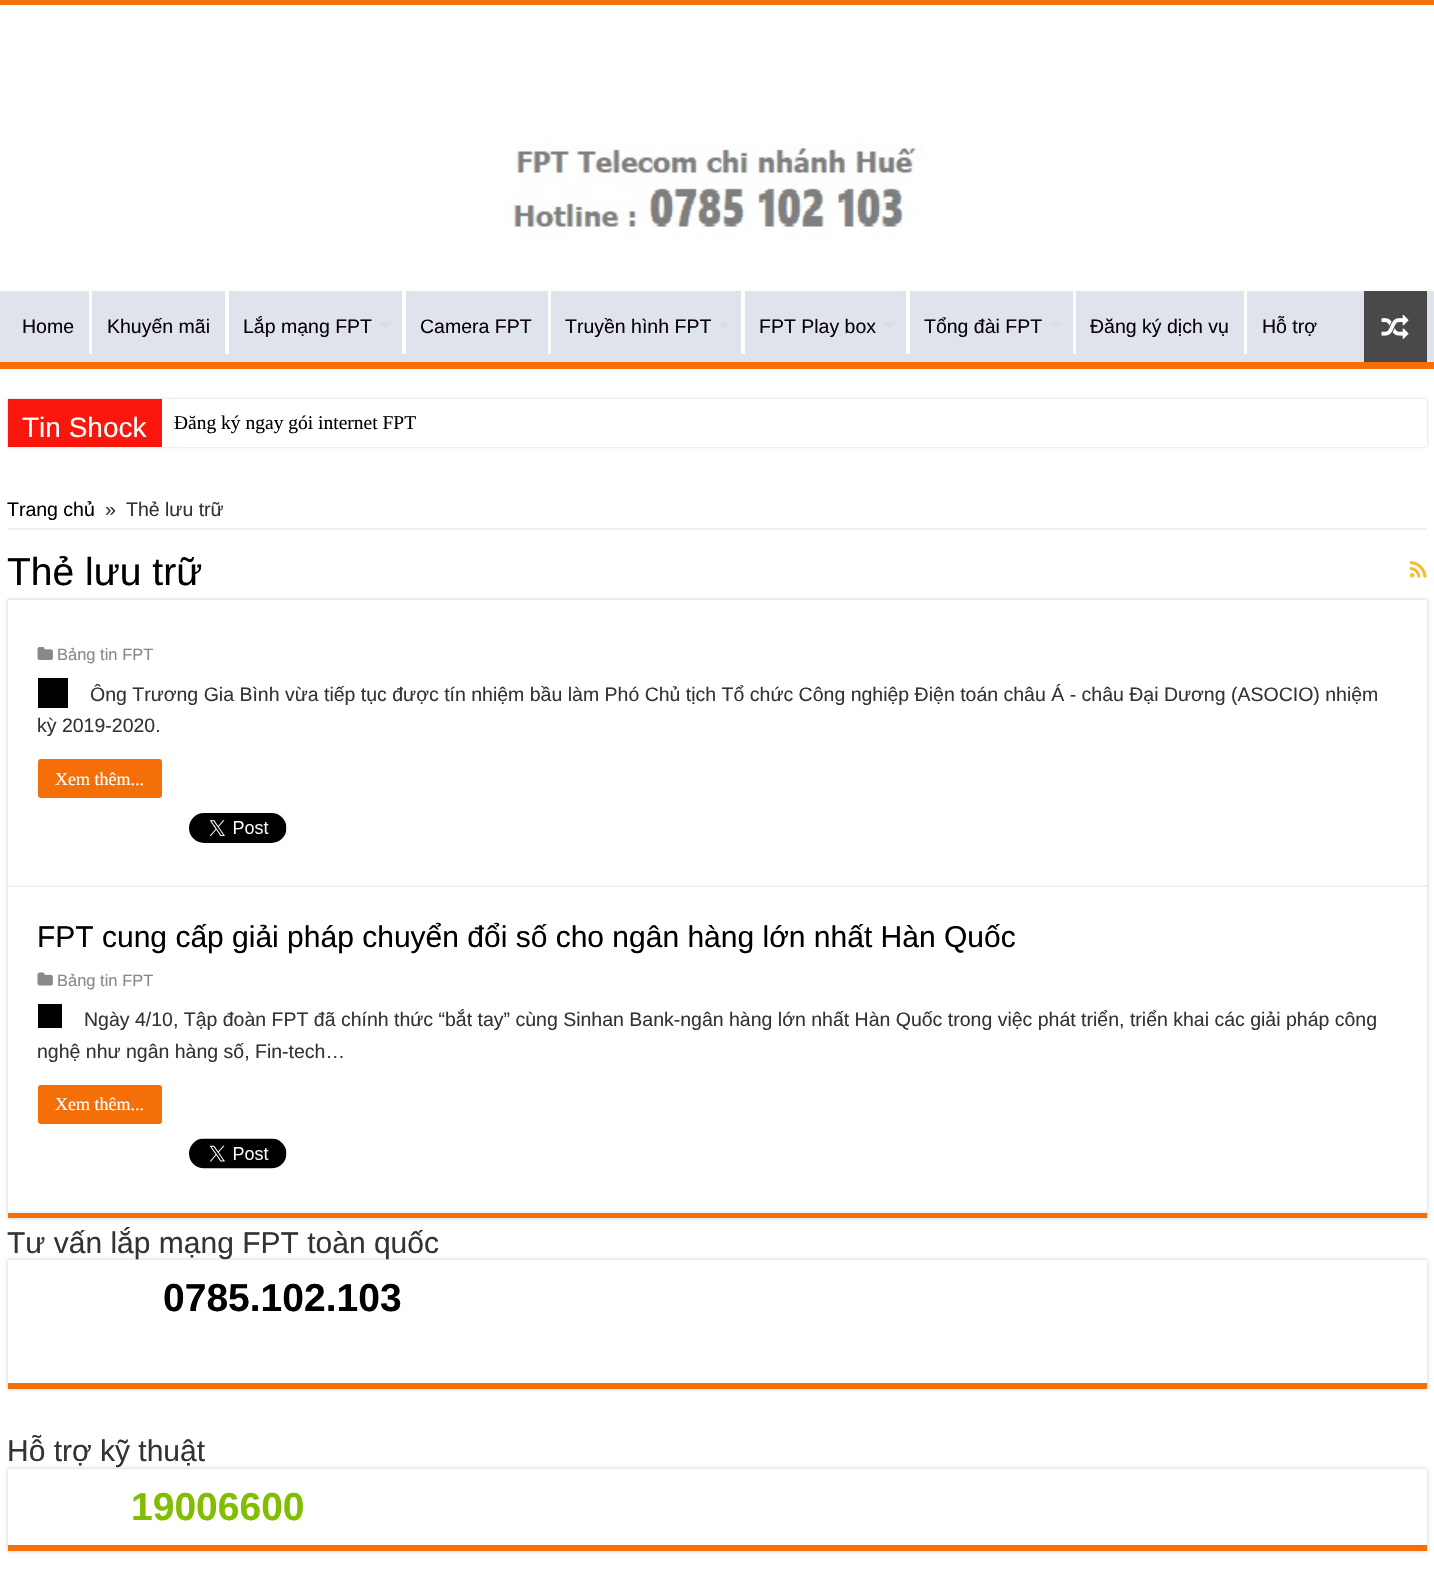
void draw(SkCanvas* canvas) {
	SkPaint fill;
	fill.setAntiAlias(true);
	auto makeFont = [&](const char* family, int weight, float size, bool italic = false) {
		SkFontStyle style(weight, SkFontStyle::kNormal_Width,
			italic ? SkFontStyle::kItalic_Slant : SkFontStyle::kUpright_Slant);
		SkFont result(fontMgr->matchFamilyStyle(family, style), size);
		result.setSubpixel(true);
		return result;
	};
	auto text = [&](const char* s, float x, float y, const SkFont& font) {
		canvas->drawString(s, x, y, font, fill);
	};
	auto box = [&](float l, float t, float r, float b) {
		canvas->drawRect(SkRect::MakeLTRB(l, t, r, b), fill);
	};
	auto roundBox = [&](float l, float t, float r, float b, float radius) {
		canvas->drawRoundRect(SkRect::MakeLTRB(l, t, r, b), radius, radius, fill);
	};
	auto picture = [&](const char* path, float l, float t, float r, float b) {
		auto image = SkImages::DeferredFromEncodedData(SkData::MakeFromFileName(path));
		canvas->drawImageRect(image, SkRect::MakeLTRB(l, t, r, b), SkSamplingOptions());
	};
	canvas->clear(0xFFFFFFFF);
	fill.setColor(0xFFF56F08);
	box(0, 0, 1434, 5);
	picture("image0.png", 503, 142, 925, 238);
	fill.setColor(0xFFDFE3EB);
	box(0, 291, 1434, 362);
	fill.setColor(0xFFF56F08);
	box(0, 362, 1434, 369);
	fill.setColor(0xFFFFFFFF);
	box(89, 291, 92, 354);
	box(225, 291, 229, 354);
	fill.setColor(0xFFDDDDDD);
	canvas->drawPath(SkPathBuilder().moveTo(379.5f, 322.5f).lineTo(391.5f, 322.5f).lineTo(385.5f, 328.5f).close().detach(), fill);
	fill.setColor(0xFFFFFFFF);
	box(402, 291, 406, 354);
	box(548, 291, 551, 354);
	fill.setColor(0xFFDDDDDD);
	canvas->drawPath(SkPathBuilder().moveTo(718.5f, 322.5f).lineTo(730.5f, 322.5f).lineTo(724.5f, 328.5f).close().detach(), fill);
	fill.setColor(0xFFFFFFFF);
	box(741, 291, 745, 354);
	fill.setColor(0xFFDDDDDD);
	canvas->drawPath(SkPathBuilder().moveTo(883.5f, 322.5f).lineTo(895.5f, 322.5f).lineTo(889.5f, 328.5f).close().detach(), fill);
	fill.setColor(0xFFFFFFFF);
	box(906, 291, 910, 354);
	fill.setColor(0xFFDDDDDD);
	canvas->drawPath(SkPathBuilder().moveTo(1050, 322.5f).lineTo(1062, 322.5f).lineTo(1056, 328.5f).close().detach(), fill);
	fill.setColor(0xFFFFFFFF);
	box(1073, 291, 1076, 354);
	box(1244, 291, 1247, 354);
	fill.setColor(0xFF494949);
	box(1364, 291, 1427, 362);
	picture("image1.png", 1381, 314, 1409, 339);
	fill.setColor(0xFFCACACA);
	fill.setMaskFilter(SkMaskFilter::MakeBlur(kNormal_SkBlurStyle, 1));
	canvas->drawRect(SkRect::MakeLTRB(8, 399, 1427, 447), fill);
	fill.setMaskFilter(nullptr);
	fill.setColor(0xFFFFFFFF);
	box(162, 399, 1427, 447);
	fill.setColor(0xFFFA150D);
	box(8, 399, 162, 447);
	fill.setColor(0xFFEEEEEE);
	box(8, 528, 1427, 530);
	picture("image2.png", 1410, 561, 1427, 578);
	fill.setColor(0xFFCACACA);
	fill.setMaskFilter(SkMaskFilter::MakeBlur(kNormal_SkBlurStyle, 2));
	canvas->drawRect(SkRect::MakeLTRB(8, 600, 1427, 1218), fill);
	fill.setMaskFilter(nullptr);
	fill.setColor(0xFFFFFFFF);
	box(8, 600, 1427, 1211);
	fill.setColor(0xFFF56F08);
	box(8, 1213, 1427, 1218);
	fill.setColor(0xFFF2F2F2);
	box(8, 885, 1427, 887);
	picture("image3.png", 37, 647, 53, 660);
	fill.setColor(0xFF000000);
	box(38, 678, 68, 708);
	fill.setColor(0xFFF56F08);
	roundBox(38, 759, 162, 798, 3);
	picture("image4.png", 189, 813, 287, 843);
	fill.setColor(0xFFF2F2F2);
	box(8, 1211, 1427, 1213);
	picture("image5.png", 37, 972, 53, 986);
	fill.setColor(0xFF000000);
	box(38, 1004, 62, 1028);
	fill.setColor(0xFFF56F08);
	roundBox(38, 1085, 162, 1124, 3);
	picture("image6.png", 189, 1138, 287, 1169);
	fill.setColor(0xFFCACACA);
	fill.setMaskFilter(SkMaskFilter::MakeBlur(kNormal_SkBlurStyle, 2));
	canvas->drawRect(SkRect::MakeLTRB(8, 1260, 1427, 1389), fill);
	fill.setMaskFilter(nullptr);
	fill.setColor(0xFFFFFFFF);
	box(8, 1260, 1427, 1383);
	fill.setColor(0xFFF56F08);
	box(8, 1383, 1427, 1389);
	fill.setColor(0xFFCACACA);
	fill.setMaskFilter(SkMaskFilter::MakeBlur(kNormal_SkBlurStyle, 2));
	canvas->drawRect(SkRect::MakeLTRB(8, 1469, 1427, 1551), fill);
	fill.setMaskFilter(nullptr);
	fill.setColor(0xFFFFFFFF);
	box(8, 1469, 1427, 1545);
	fill.setColor(0xFFF56F08);
	box(8, 1545, 1427, 1551);
	auto font1 = makeFont("Liberation Sans", 400, 19.5f);
	fill.setColor(0xFF0A010A);
	text("Home", 22, 333, font1);
	text("Khuyến mãi", 107, 333, font1);
	text("Lắp mạng FPT", 243, 333, font1);
	text("Camera FPT", 420, 333, font1);
	text("Truyền hình FPT", 565, 333, font1);
	text("FPT Play box", 759, 333, font1);
	text("Tổng đài FPT", 924, 333, font1);
	text("Đăng ký dịch vụ", 1090, 333, font1);
	text("Hỗ trợ", 1262, 333, font1);
	auto font2 = makeFont("Liberation Sans", 400, 28);
	fill.setColor(0xFFFFFFFF);
	text("Tin Shock", 22, 437, font2);
	auto font3 = makeFont("Liberation Serif", 400, 19.5f);
	fill.setColor(0xFF000000);
	text("Đăng ký ngay gói internet FPT", 174, 429, font3);
	text("Trang chủ", 7, 516, font1);
	fill.setColor(0xFF333333);
	text("»", 105, 516, font1);
	text("Thẻ lưu trữ", 126, 516, font1);
	auto font4 = makeFont("Liberation Sans", 400, 39);
	fill.setColor(0xFF000000);
	text("Thẻ lưu trữ", 7, 585, font4);
	auto font5 = makeFont("Liberation Sans", 400, 16.5f);
	fill.setColor(0xFF888888);
	text("Bảng tin FPT", 57, 660, font5);
	fill.setColor(0xFF333333);
	text("Ông Trương Gia Bình vừa tiếp tục được tín nhiệm bầu làm Phó Chủ tịch Tổ chức Công nghiệp Điện toán châu Á - châu Đại Dương (ASOCIO) nhiệm", 90, 701, font1);
	text("kỳ 2019-2020.", 37, 732, font1);
	auto font6 = makeFont("Liberation Serif", 400, 18);
	fill.setColor(0xFFFFFFFF);
	text("Xem thêm...", 55, 785, font6);
	auto font7 = makeFont("Liberation Sans", 400, 30);
	fill.setColor(0xFF000000);
	text("FPT cung cấp giải pháp chuyển đổi số cho ngân hàng lớn nhất Hàn Quốc", 37, 947, font7);
	fill.setColor(0xFF888888);
	text("Bảng tin FPT", 57, 986, font5);
	fill.setColor(0xFF333333);
	text("Ngày 4/10, Tập đoàn FPT đã chính thức “bắt tay” cùng Sinhan Bank-ngân hàng lớn nhất Hàn Quốc trong việc phát triển, triển khai các giải pháp công", 84, 1026, font1);
	text("nghệ như ngân hàng số, Fin-tech…", 37, 1058, font1);
	fill.setColor(0xFFFFFFFF);
	text("Xem thêm...", 55, 1110, font6);
	fill.setColor(0xFF333333);
	text("Tư vấn lắp mạng FPT toàn quốc", 7, 1253, font7);
	auto font8 = makeFont("Liberation Sans", 700, 39);
	fill.setColor(0xFF000000);
	text("0785.102.103", 163, 1311, font8);
	fill.setColor(0xFF333333);
	text("Hỗ trợ kỹ thuật", 7, 1461, font7);
	fill.setColor(0xFF81BD00);
	text("19006600", 131, 1520, font8);
}
